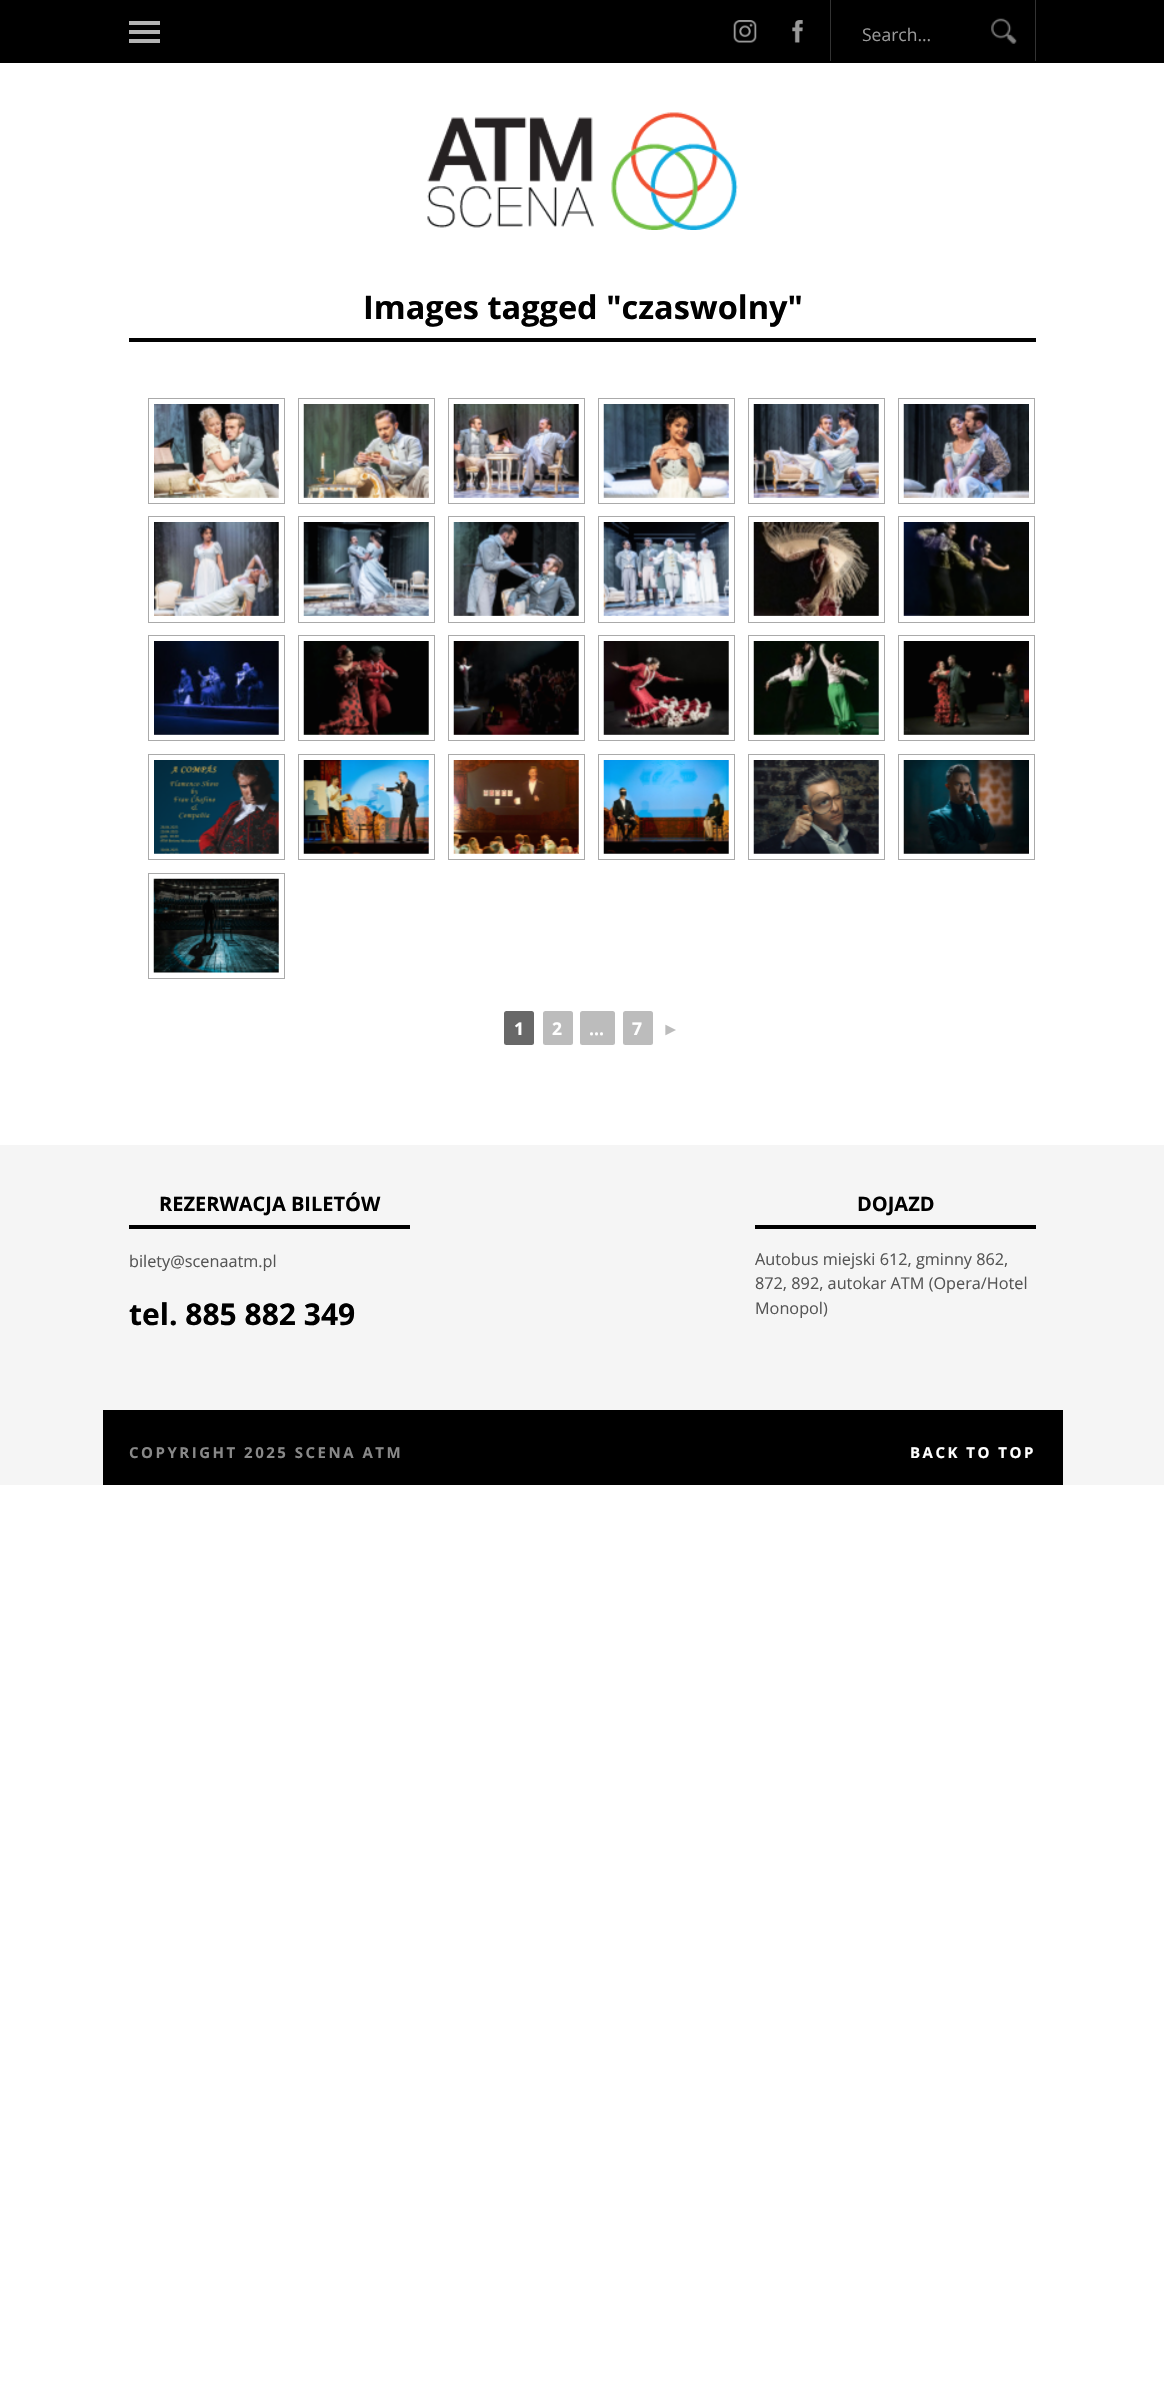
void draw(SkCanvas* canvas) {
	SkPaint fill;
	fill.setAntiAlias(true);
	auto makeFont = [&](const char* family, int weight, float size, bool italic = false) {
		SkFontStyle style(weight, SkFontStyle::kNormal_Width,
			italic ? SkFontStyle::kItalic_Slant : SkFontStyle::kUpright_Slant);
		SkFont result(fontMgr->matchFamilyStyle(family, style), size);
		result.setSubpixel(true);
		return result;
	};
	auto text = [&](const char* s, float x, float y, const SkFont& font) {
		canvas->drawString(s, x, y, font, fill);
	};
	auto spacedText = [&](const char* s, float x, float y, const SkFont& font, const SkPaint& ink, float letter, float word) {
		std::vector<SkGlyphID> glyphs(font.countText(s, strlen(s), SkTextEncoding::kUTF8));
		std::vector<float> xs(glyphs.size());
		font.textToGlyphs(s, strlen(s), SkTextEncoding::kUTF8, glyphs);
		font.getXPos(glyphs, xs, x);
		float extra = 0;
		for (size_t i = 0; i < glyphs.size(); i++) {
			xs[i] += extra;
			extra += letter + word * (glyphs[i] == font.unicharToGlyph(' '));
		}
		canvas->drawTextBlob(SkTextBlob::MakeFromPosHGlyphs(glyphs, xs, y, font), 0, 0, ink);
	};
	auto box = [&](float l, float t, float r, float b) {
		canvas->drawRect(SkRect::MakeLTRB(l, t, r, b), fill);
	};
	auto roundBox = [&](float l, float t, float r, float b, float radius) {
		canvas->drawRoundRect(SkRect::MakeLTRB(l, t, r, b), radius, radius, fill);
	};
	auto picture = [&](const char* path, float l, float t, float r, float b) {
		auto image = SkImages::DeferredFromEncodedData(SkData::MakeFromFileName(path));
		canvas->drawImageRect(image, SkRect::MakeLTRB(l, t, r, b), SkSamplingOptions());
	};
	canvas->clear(0xFFFFFFFF);
	fill.setColor(0xFF000000);
	box(0, 0, 1164, 63);
	fill.setColor(0xFFB3B3B3);
	box(129, 21, 160, 25);
	box(129, 30, 160, 34);
	box(129, 39, 160, 43);
	picture("image0.png", 733, 20, 757, 43);
	picture("image1.png", 792, 20, 803, 43);
	fill.setColor(0xFF333333);
	box(1035, 0, 1036, 61);
	box(830, 0, 831, 61);
	picture("image2.png", 991, 18, 1017, 44);
	picture("image3.png", 427, 112, 738, 230);
	fill.setColor(0xFF030303);
	box(129, 338, 1036, 342);
	fill.setStyle(SkPaint::kStroke_Style);
	fill.setStrokeWidth(1);
	fill.setColor(0xFFAAAAAA);
	canvas->drawRect(SkRect::MakeLTRB(148.5f, 398.5f, 284.5f, 503.5f), fill);
	picture("image4.png", 154, 404, 279, 498);
	canvas->drawRect(SkRect::MakeLTRB(298.5f, 398.5f, 434.5f, 503.5f), fill);
	picture("image5.png", 303, 404, 429, 498);
	canvas->drawRect(SkRect::MakeLTRB(448.5f, 398.5f, 584.5f, 503.5f), fill);
	picture("image6.png", 453, 404, 579, 498);
	canvas->drawRect(SkRect::MakeLTRB(598.5f, 398.5f, 734.5f, 503.5f), fill);
	picture("image7.png", 603, 404, 729, 498);
	canvas->drawRect(SkRect::MakeLTRB(748.5f, 398.5f, 884.5f, 503.5f), fill);
	picture("image8.png", 753, 404, 879, 498);
	canvas->drawRect(SkRect::MakeLTRB(898.5f, 398.5f, 1034.5f, 503.5f), fill);
	picture("image9.png", 903, 404, 1029, 498);
	canvas->drawRect(SkRect::MakeLTRB(148.5f, 516.5f, 284.5f, 622.5f), fill);
	picture("image10.png", 154, 522, 279, 616);
	canvas->drawRect(SkRect::MakeLTRB(298.5f, 516.5f, 434.5f, 622.5f), fill);
	picture("image11.png", 303, 522, 429, 616);
	canvas->drawRect(SkRect::MakeLTRB(448.5f, 516.5f, 584.5f, 622.5f), fill);
	picture("image12.png", 453, 522, 579, 616);
	canvas->drawRect(SkRect::MakeLTRB(598.5f, 516.5f, 734.5f, 622.5f), fill);
	picture("image13.png", 603, 522, 729, 616);
	canvas->drawRect(SkRect::MakeLTRB(748.5f, 516.5f, 884.5f, 622.5f), fill);
	picture("image14.png", 753, 522, 879, 616);
	canvas->drawRect(SkRect::MakeLTRB(898.5f, 516.5f, 1034.5f, 622.5f), fill);
	picture("image15.png", 903, 522, 1029, 616);
	canvas->drawRect(SkRect::MakeLTRB(148.5f, 635.5f, 284.5f, 740.5f), fill);
	picture("image16.png", 154, 641, 279, 735);
	canvas->drawRect(SkRect::MakeLTRB(298.5f, 635.5f, 434.5f, 740.5f), fill);
	picture("image17.png", 303, 641, 429, 735);
	canvas->drawRect(SkRect::MakeLTRB(448.5f, 635.5f, 584.5f, 740.5f), fill);
	picture("image18.png", 453, 641, 579, 735);
	canvas->drawRect(SkRect::MakeLTRB(598.5f, 635.5f, 734.5f, 740.5f), fill);
	picture("image19.png", 603, 641, 729, 735);
	canvas->drawRect(SkRect::MakeLTRB(748.5f, 635.5f, 884.5f, 740.5f), fill);
	picture("image20.png", 753, 641, 879, 735);
	canvas->drawRect(SkRect::MakeLTRB(898.5f, 635.5f, 1034.5f, 740.5f), fill);
	picture("image21.png", 903, 641, 1029, 735);
	canvas->drawRect(SkRect::MakeLTRB(148.5f, 754.5f, 284.5f, 859.5f), fill);
	picture("image22.png", 154, 760, 279, 854);
	canvas->drawRect(SkRect::MakeLTRB(298.5f, 754.5f, 434.5f, 859.5f), fill);
	picture("image23.png", 303, 760, 429, 854);
	canvas->drawRect(SkRect::MakeLTRB(448.5f, 754.5f, 584.5f, 859.5f), fill);
	picture("image24.png", 453, 760, 579, 854);
	canvas->drawRect(SkRect::MakeLTRB(598.5f, 754.5f, 734.5f, 859.5f), fill);
	picture("image25.png", 603, 760, 729, 854);
	canvas->drawRect(SkRect::MakeLTRB(748.5f, 754.5f, 884.5f, 859.5f), fill);
	picture("image26.png", 753, 760, 879, 854);
	canvas->drawRect(SkRect::MakeLTRB(898.5f, 754.5f, 1034.5f, 859.5f), fill);
	picture("image27.png", 903, 760, 1029, 854);
	canvas->drawRect(SkRect::MakeLTRB(148.5f, 873.5f, 284.5f, 978.5f), fill);
	picture("image28.png", 153, 878, 279, 973);
	fill.setStyle(SkPaint::kFill_Style);
	fill.setColor(0xFF686868);
	roundBox(504, 1011, 534, 1045, 2.5f);
	fill.setColor(0xFFBCBCBC);
	roundBox(543, 1011, 573, 1045, 2.5f);
	roundBox(580, 1011, 615, 1045, 2.5f);
	roundBox(623, 1011, 653, 1045, 2.5f);
	fill.setColor(0xFFF5F5F5);
	box(0, 1145, 1164, 1485);
	fill.setColor(0xFF000000);
	box(129, 1225, 410, 1229);
	box(755, 1225, 1036, 1229);
	box(103, 1410, 1063, 1485);
	auto font1 = makeFont("Open Sans", 400, 17.5f);
	fill.setColor(0xFF999999);
	text("Search...", 862, 41, font1);
	auto font2 = makeFont("Open Sans", 700, 32.5f);
	fill.setColor(0xFF000000);
	text("Images tagged \"czaswolny\"", 363, 319, font2);
	auto font3 = makeFont("Open Sans", 700, 17.5f);
	fill.setColor(0xFFFFFFFF);
	text("1", 514, 1035, font3);
	text("2", 552, 1035, font3);
	text("...", 589, 1035, font3);
	text("7", 632, 1035, font3);
	auto font4 = makeFont("Liberation Sans", 700, 17.5f);
	fill.setColor(0xFFBCBCBC);
	text("►", 662, 1035, font4);
	auto font5 = makeFont("Open Sans", 700, 20);
	fill.setColor(0xFF000000);
	text("REZERWACJA BILETÓW", 159, 1211, font5);
	auto font6 = makeFont("Open Sans", 400, 16.25f);
	fill.setColor(0xFF555555);
	text("bilety@scenaatm.pl", 129, 1267, font6);
	auto font7 = makeFont("Open Sans", 700, 30);
	fill.setColor(0xFF000000);
	text("tel. 885 882 349", 129, 1325, font7);
	text("DOJAZD", 857, 1211, font5);
	fill.setColor(0xFF555555);
	text("Autobus miejski 612, gminny 862,", 755, 1265, font6);
	text("872, 892, autokar ATM (Opera/Hotel", 755, 1289, font6);
	text("Monopol)", 755, 1314, font6);
	auto font8 = makeFont("Open Sans", 700, 15);
	fill.setColor(0xFF888888);
	spacedText("COPYRIGHT 2025 SCENA ATM", 129, 1458, font8, fill, 2.5f, 0);
	fill.setColor(0xFFFFFFFF);
	spacedText("BACK TO TOP", 910, 1458, font8, fill, 2.5f, 0);
}
